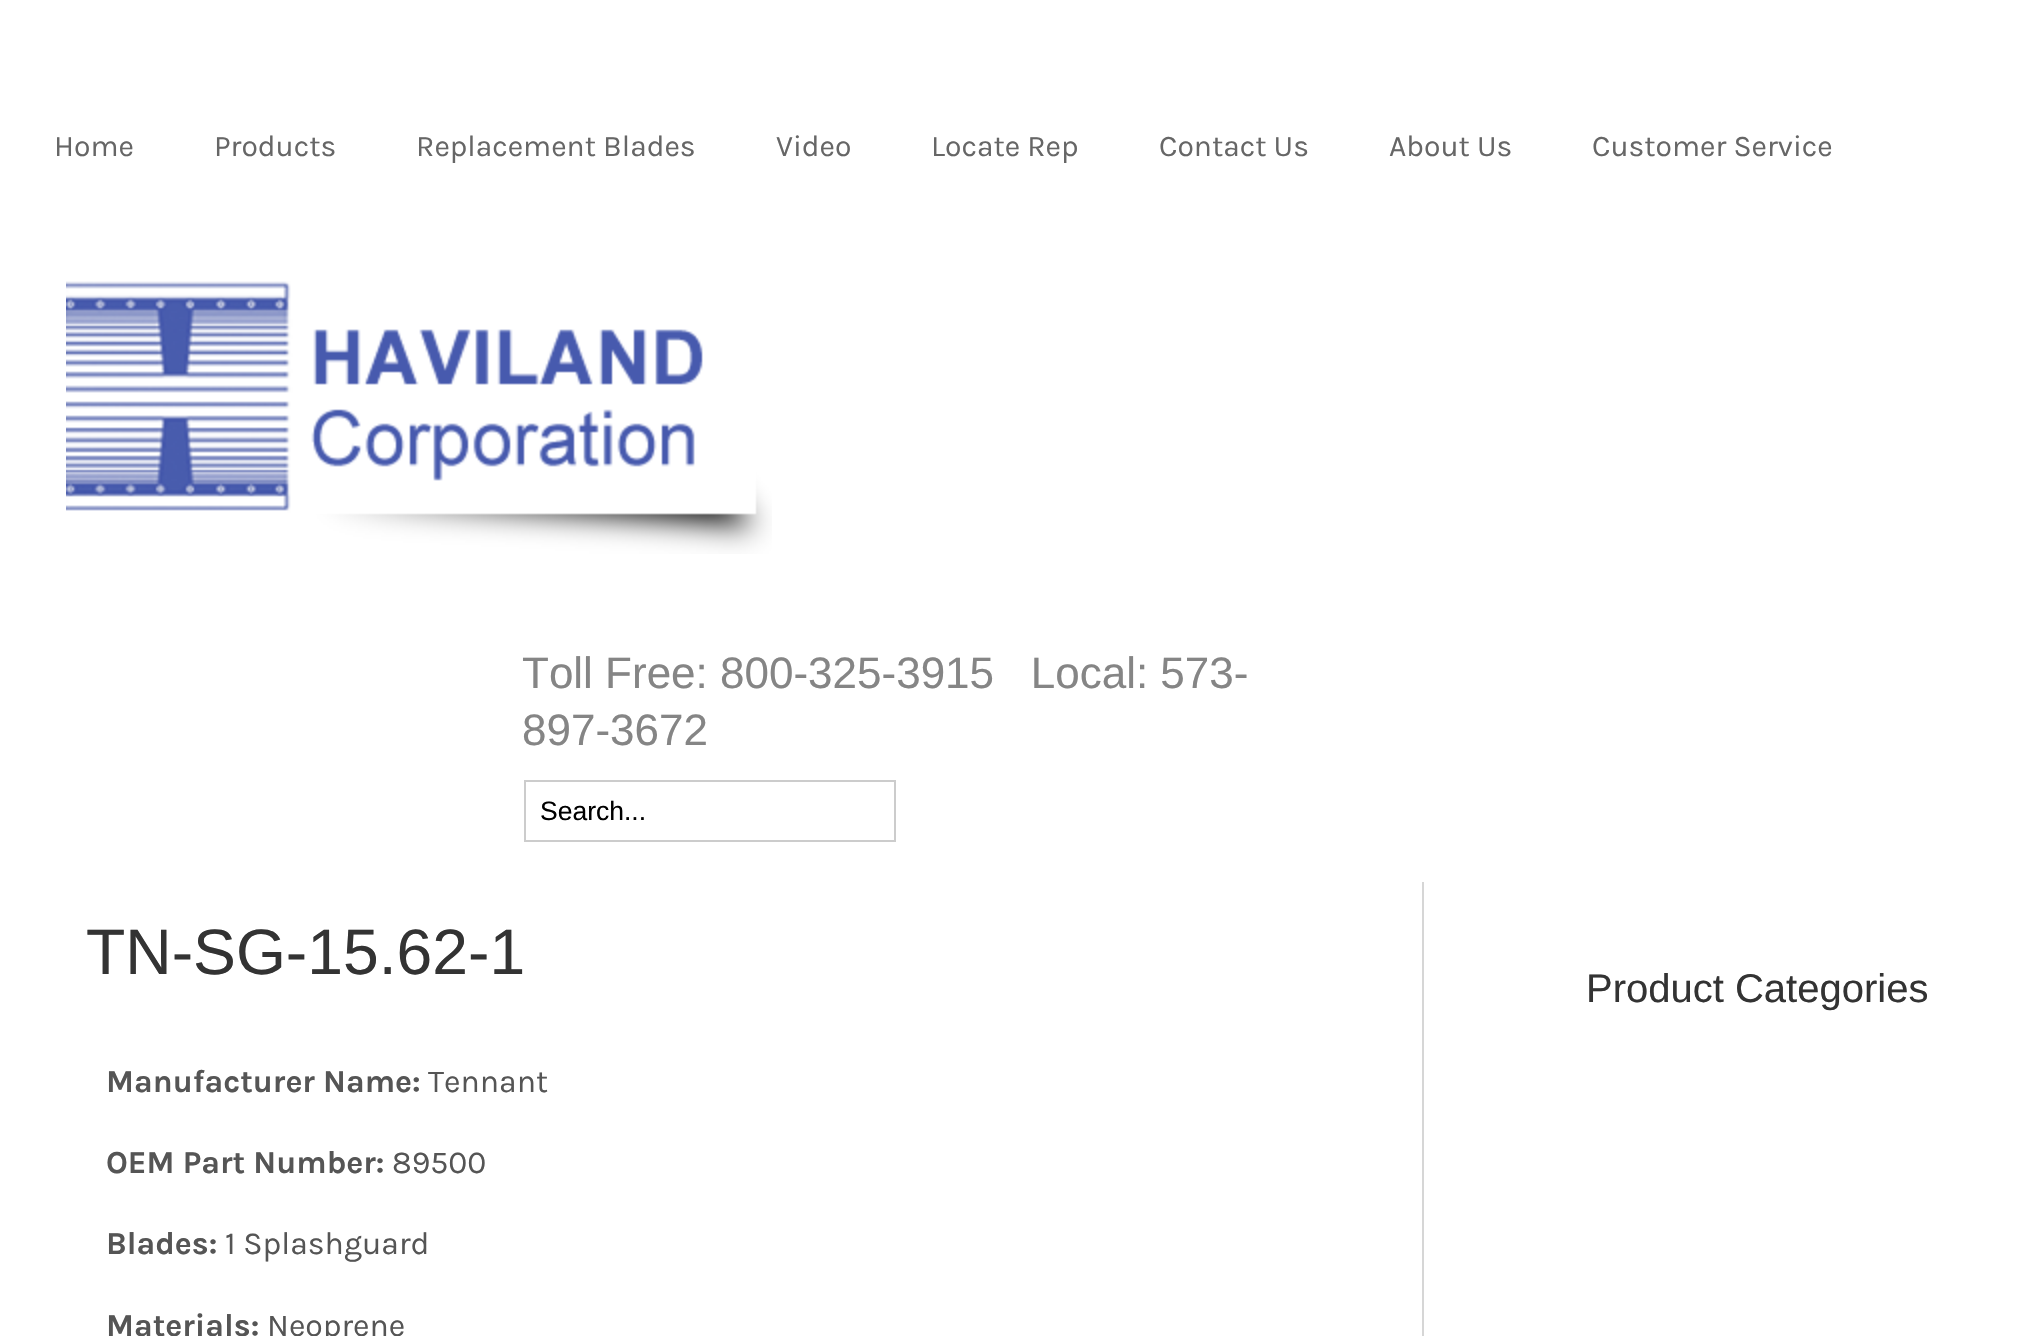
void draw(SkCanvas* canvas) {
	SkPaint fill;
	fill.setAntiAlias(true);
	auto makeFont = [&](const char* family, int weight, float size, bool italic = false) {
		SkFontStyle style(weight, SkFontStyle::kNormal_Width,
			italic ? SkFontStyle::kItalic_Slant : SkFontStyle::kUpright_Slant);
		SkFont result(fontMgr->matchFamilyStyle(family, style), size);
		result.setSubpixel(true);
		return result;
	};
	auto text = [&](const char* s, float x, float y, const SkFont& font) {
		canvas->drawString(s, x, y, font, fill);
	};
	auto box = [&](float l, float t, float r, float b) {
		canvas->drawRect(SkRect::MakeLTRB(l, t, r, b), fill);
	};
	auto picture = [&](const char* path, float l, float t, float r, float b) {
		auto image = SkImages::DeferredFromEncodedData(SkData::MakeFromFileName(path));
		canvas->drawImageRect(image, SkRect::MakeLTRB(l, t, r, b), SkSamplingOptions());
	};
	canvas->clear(0xFFFFFFFF);
	picture("image0.png", 66, 281, 772, 554);
	fill.setStyle(SkPaint::kStroke_Style);
	fill.setStrokeWidth(2);
	fill.setColor(0xFFCCCCCC);
	canvas->drawRect(SkRect::MakeLTRB(525, 781, 895, 841), fill);
	fill.setStyle(SkPaint::kFill_Style);
	fill.setColor(0xFFD6D6D6);
	box(1422, 882, 1424, 1336);
	auto font1 = makeFont("Karla", 400, 30);
	fill.setColor(0xFF666666);
	text("Home", 54, 156, font1);
	text("Products", 214, 156, font1);
	text("Replacement Blades", 416, 156, font1);
	text("Video", 776, 156, font1);
	text("Locate Rep", 931, 156, font1);
	text("Contact Us", 1159, 156, font1);
	text("About Us", 1389, 156, font1);
	text("Customer Service", 1592, 156, font1);
	auto font2 = makeFont("Liberation Sans", 400, 44);
	fill.setColor(0xFF858585);
	text("Toll Free: 800-325-3915   Local: 573-", 522, 688, font2);
	text("897-3672", 522, 745, font2);
	auto font3 = makeFont("Liberation Sans", 400, 26.5f);
	fill.setColor(0xFF000000);
	text("Search...", 540, 820, font3);
	auto font4 = makeFont("Liberation Sans", 400, 64.25f);
	fill.setColor(0xFF333333);
	text("TN-SG-15.62-1", 86, 974, font4);
	auto font5 = makeFont("Karla", 700, 32);
	fill.setColor(0xFF555555);
	text("Manufacturer Name:", 106, 1092, font5);
	auto font6 = makeFont("Karla", 400, 32);
	text("Tennant", 428, 1092, font6);
	text("OEM Part Number:", 106, 1173, font5);
	text("89500", 392, 1173, font6);
	text("Blades:", 106, 1254, font5);
	text("1 Splashguard", 225, 1254, font6);
	text("Materials:", 106, 1336, font5);
	text("Neoprene", 267, 1336, font6);
	auto font7 = makeFont("Liberation Sans", 400, 40);
	fill.setColor(0xFF333333);
	text("Product Categories", 1586, 1002, font7);
}
